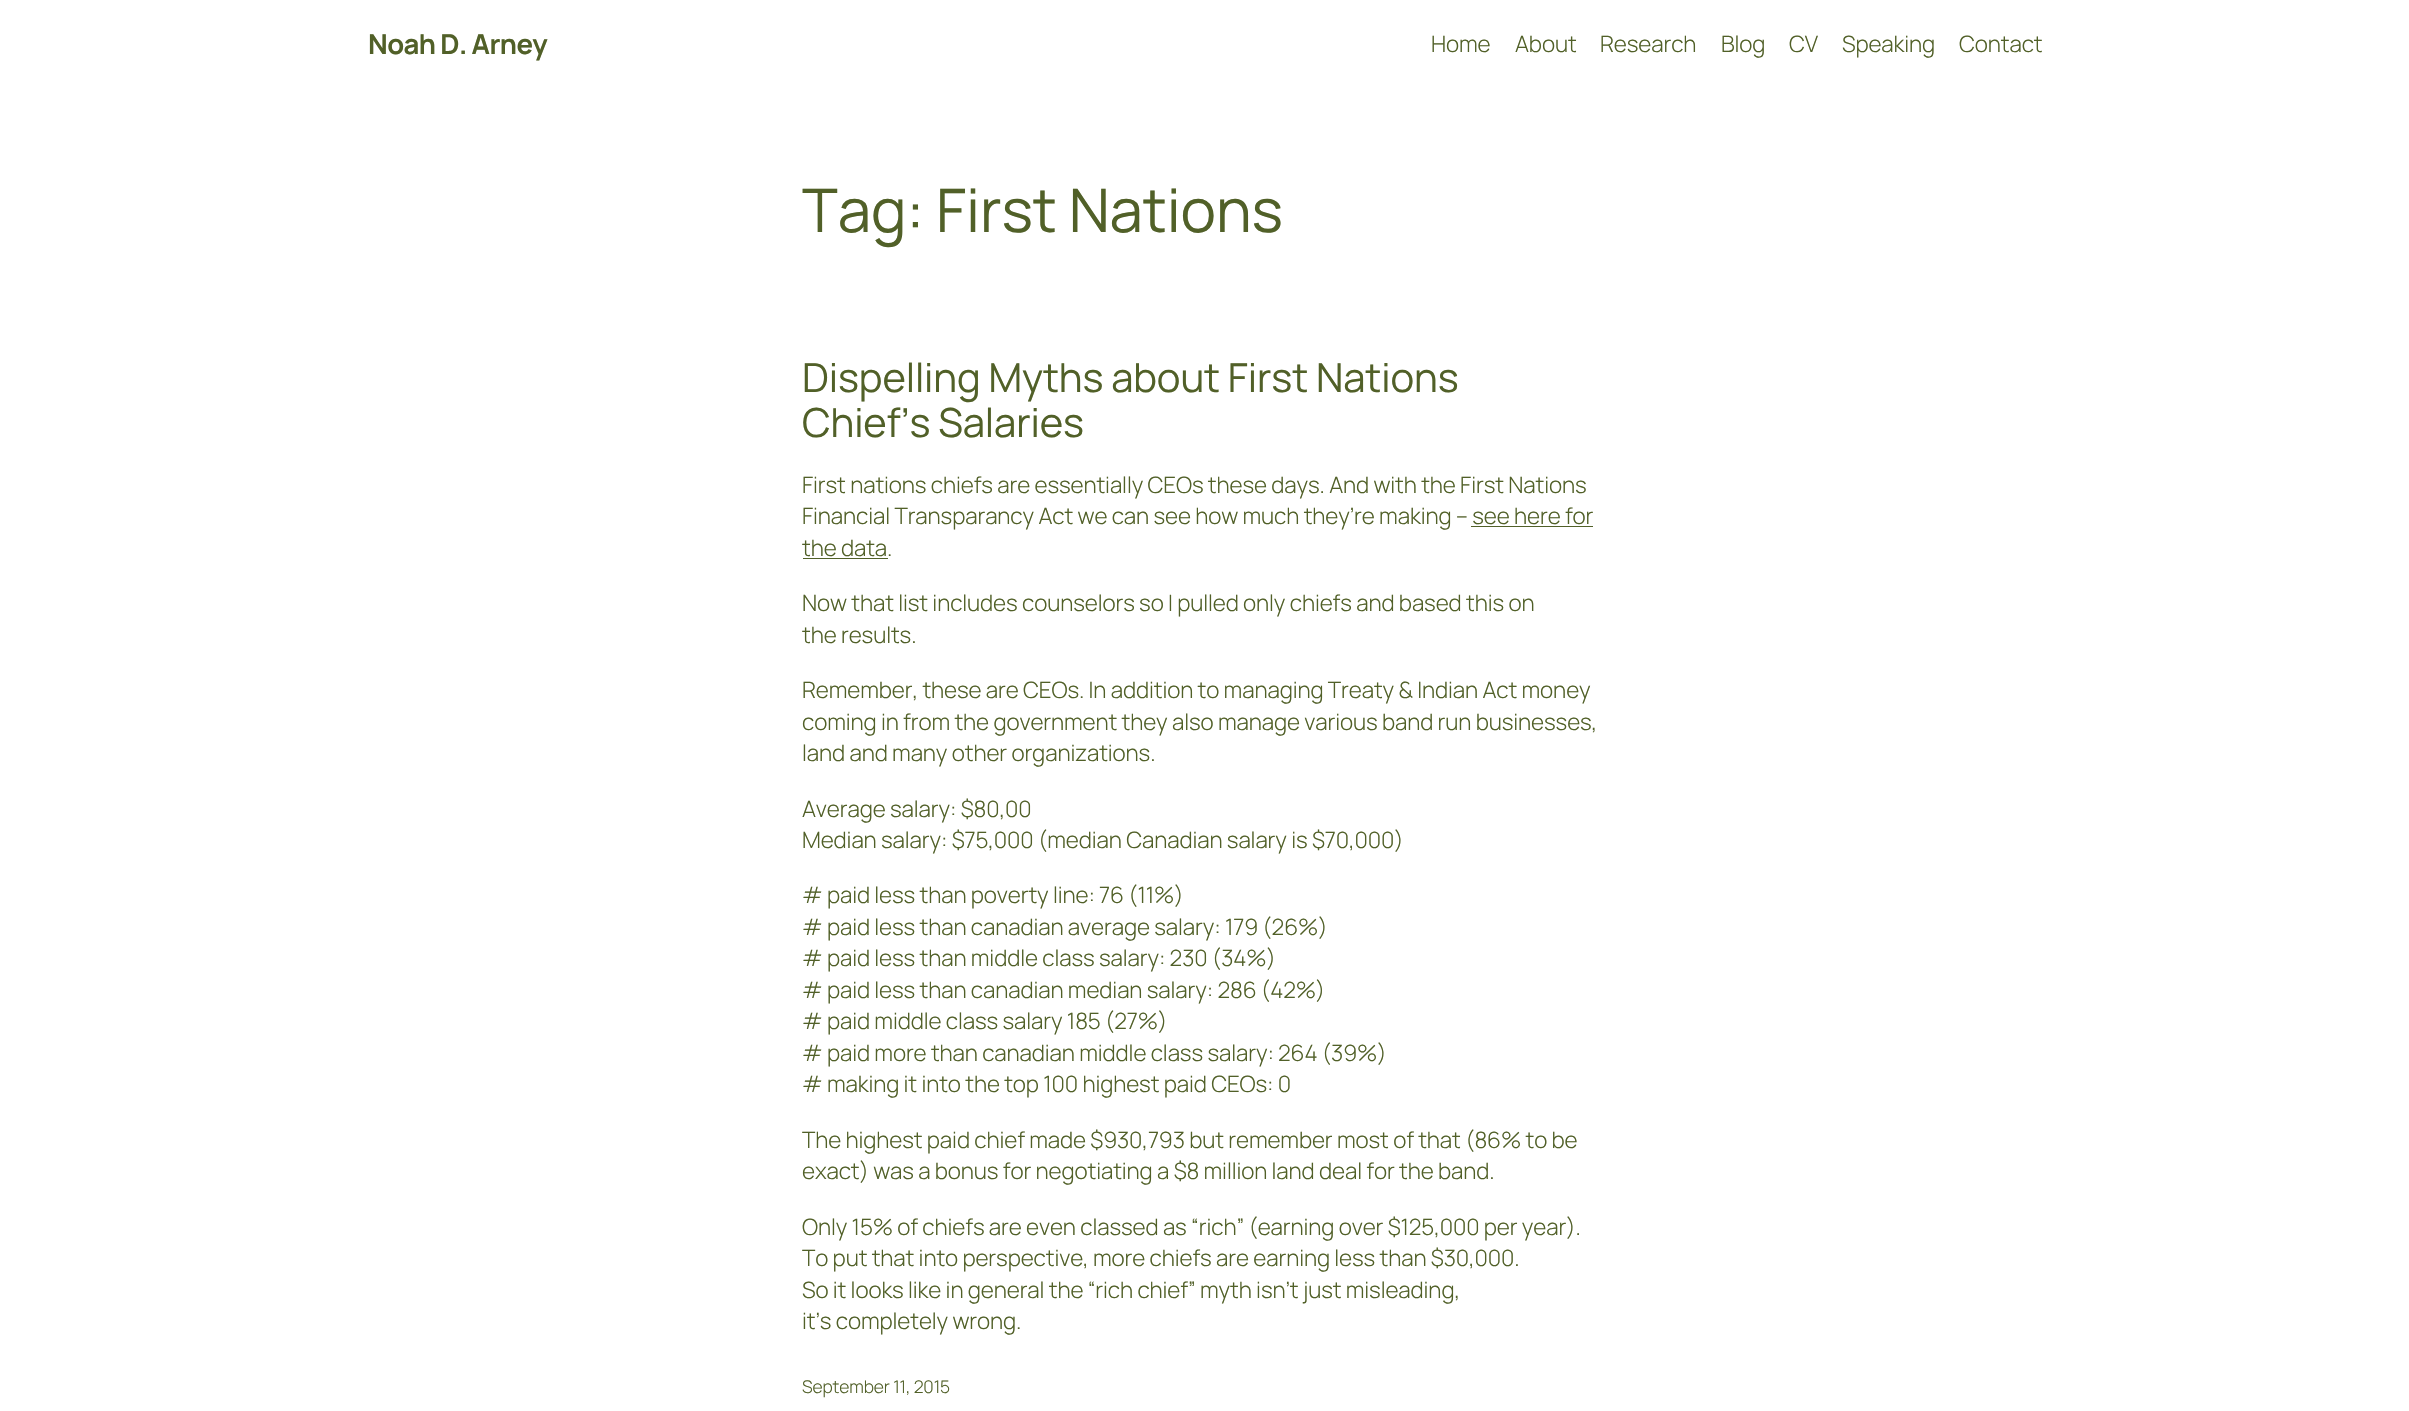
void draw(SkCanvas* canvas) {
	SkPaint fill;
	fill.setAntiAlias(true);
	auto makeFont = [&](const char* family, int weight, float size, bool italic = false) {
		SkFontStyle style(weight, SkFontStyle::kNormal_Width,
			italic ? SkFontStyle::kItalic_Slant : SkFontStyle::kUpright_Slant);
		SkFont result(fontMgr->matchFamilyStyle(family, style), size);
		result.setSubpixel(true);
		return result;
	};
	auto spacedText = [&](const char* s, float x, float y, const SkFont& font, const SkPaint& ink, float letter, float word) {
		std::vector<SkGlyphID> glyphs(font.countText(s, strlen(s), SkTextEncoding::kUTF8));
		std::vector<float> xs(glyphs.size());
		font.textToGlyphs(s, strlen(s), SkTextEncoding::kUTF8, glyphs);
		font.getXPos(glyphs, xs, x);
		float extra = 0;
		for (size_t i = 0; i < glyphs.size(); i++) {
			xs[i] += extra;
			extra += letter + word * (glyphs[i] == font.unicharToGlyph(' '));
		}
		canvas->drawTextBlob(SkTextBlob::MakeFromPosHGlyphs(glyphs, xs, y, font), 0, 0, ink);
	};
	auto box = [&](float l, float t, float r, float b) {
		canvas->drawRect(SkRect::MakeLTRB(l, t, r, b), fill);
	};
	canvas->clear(0xFFFFFFFF);
	fill.setColor(0xFF516028);
	box(1471, 526, 1593, 527);
	box(803, 558, 888, 559);
	auto font1 = makeFont("Manrope", 700, 27.5f);
	spacedText("Noah D. Arney", 368, 54, font1, fill, -0.6f, 0);
	auto font2 = makeFont("Manrope", 300, 22.5f);
	spacedText("Home", 1431, 52, font2, fill, -0.12f, 0);
	spacedText("About", 1515, 52, font2, fill, -0.12f, 0);
	spacedText("Research", 1600, 52, font2, fill, -0.12f, 0);
	spacedText("Blog", 1721, 52, font2, fill, -0.12f, 0);
	spacedText("CV", 1789, 52, font2, fill, -0.12f, 0);
	spacedText("Speaking", 1842, 52, font2, fill, -0.12f, 0);
	spacedText("Contact", 1959, 52, font2, fill, -0.12f, 0);
	auto font3 = makeFont("Manrope", 400, 60);
	spacedText("Tag: First Nations", 802, 232, font3, fill, -0.12f, 0);
	auto font4 = makeFont("Manrope", 400, 40);
	spacedText("Dispelling Myths about First Nations", 802, 392, font4, fill, -0.12f, 0);
	spacedText("Chief’s Salaries", 802, 437, font4, fill, -0.12f, 0);
	spacedText("First nations chiefs are essentially CEOs these days. And with the First Nations", 802, 493, font2, fill, -0.12f, 0);
	spacedText("Financial Transparancy Act we can see how much they’re making – see here for", 802, 524, font2, fill, -0.12f, 0);
	spacedText("the data.", 802, 556, font2, fill, -0.12f, 0);
	spacedText("Now that list includes counselors so I pulled only chiefs and based this on", 802, 611, font2, fill, -0.12f, 0);
	spacedText("the results.", 802, 643, font2, fill, -0.12f, 0);
	spacedText("Remember, these are CEOs. In addition to managing Treaty & Indian Act money", 802, 698, font2, fill, -0.12f, 0);
	spacedText("coming in from the government they also manage various band run businesses,", 802, 730, font2, fill, -0.12f, 0);
	spacedText("land and many other organizations.", 802, 761, font2, fill, -0.12f, 0);
	spacedText("Average salary: $80,00", 802, 817, font2, fill, -0.12f, 0);
	spacedText("Median salary: $75,000 (median Canadian salary is $70,000)", 802, 848, font2, fill, -0.12f, 0);
	spacedText("# paid less than poverty line: 76 (11%)", 802, 903, font2, fill, -0.12f, 0);
	spacedText("# paid less than canadian average salary: 179 (26%)", 802, 935, font2, fill, -0.12f, 0);
	spacedText("# paid less than middle class salary: 230 (34%)", 802, 966, font2, fill, -0.12f, 0);
	spacedText("# paid less than canadian median salary: 286 (42%)", 802, 998, font2, fill, -0.12f, 0);
	spacedText("# paid middle class salary 185 (27%)", 802, 1029, font2, fill, -0.12f, 0);
	spacedText("# paid more than canadian middle class salary: 264 (39%)", 802, 1061, font2, fill, -0.12f, 0);
	spacedText("# making it into the top 100 highest paid CEOs: 0", 802, 1092, font2, fill, -0.12f, 0);
	spacedText("The highest paid chief made $930,793 but remember most of that (86% to be", 802, 1148, font2, fill, -0.12f, 0);
	spacedText("exact) was a bonus for negotiating a $8 million land deal for the band.", 802, 1179, font2, fill, -0.12f, 0);
	spacedText("Only 15% of chiefs are even classed as “rich” (earning over $125,000 per year).", 802, 1235, font2, fill, -0.12f, 0);
	spacedText("To put that into perspective, more chiefs are earning less than $30,000.", 802, 1266, font2, fill, -0.12f, 0);
	spacedText("So it looks like in general the “rich chief” myth isn’t just misleading,", 802, 1298, font2, fill, -0.12f, 0);
	spacedText("it’s completely wrong.", 802, 1329, font2, fill, -0.12f, 0);
	auto font5 = makeFont("Manrope", 300, 17.5f);
	spacedText("September 11, 2015", 802, 1393, font5, fill, -0.12f, 0);
}
